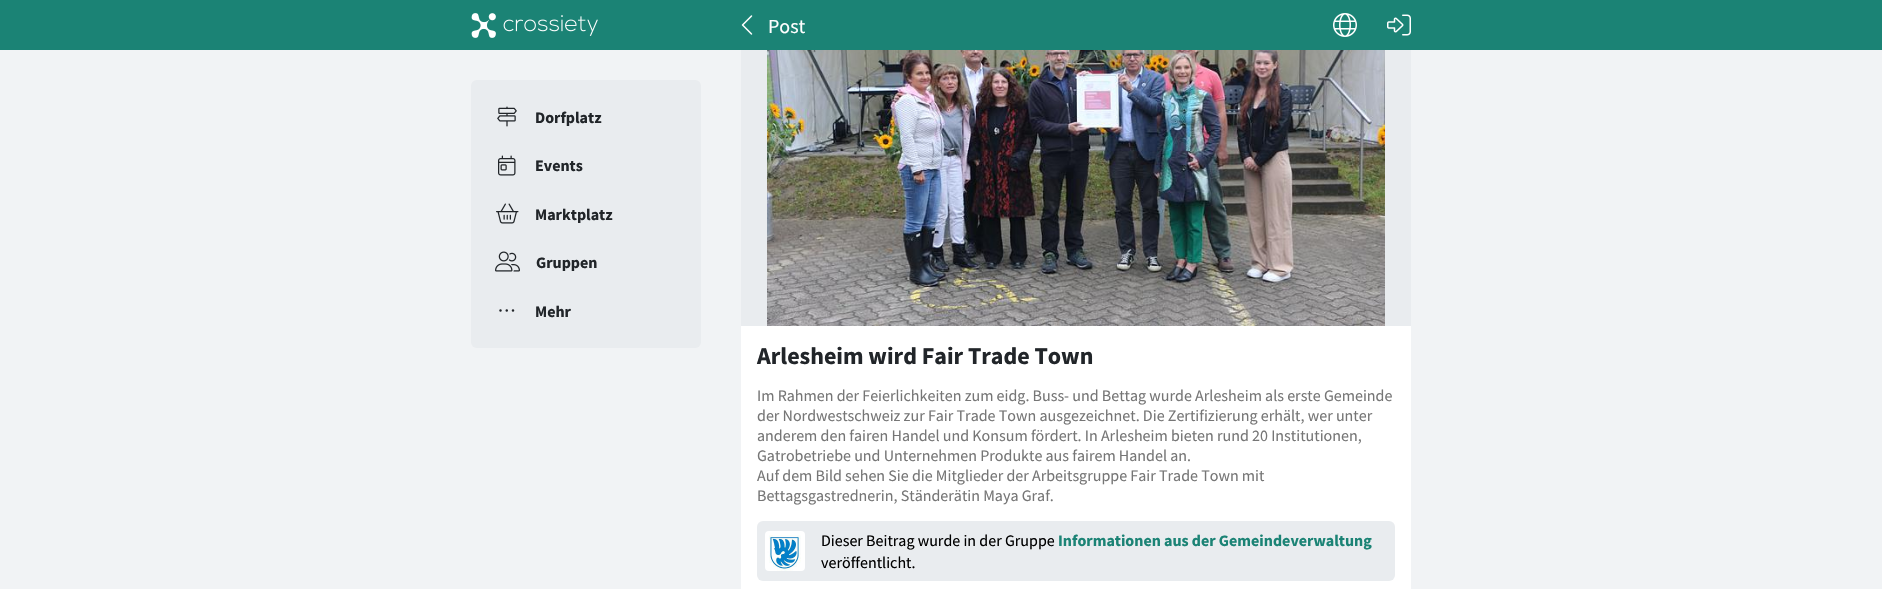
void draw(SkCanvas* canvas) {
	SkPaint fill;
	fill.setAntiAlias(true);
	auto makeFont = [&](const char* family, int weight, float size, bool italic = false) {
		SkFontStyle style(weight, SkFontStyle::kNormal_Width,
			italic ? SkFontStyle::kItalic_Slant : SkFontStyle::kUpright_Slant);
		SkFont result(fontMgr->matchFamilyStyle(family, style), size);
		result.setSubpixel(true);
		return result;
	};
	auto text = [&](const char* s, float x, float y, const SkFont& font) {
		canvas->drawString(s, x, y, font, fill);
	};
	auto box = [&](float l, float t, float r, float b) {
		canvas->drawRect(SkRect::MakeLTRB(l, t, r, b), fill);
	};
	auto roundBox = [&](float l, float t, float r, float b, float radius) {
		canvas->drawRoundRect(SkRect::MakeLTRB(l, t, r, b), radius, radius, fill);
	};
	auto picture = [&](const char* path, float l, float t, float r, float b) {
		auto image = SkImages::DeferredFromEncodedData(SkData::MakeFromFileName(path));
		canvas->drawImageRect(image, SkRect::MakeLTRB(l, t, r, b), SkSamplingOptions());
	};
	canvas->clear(0xFFF1F3F5);
	fill.setColor(0xFF1B8375);
	box(0, 0, 1882, 50);
	picture("image0.png", 471, 13, 598, 38);
	picture("image1.png", 741, 15, 753, 35);
	picture("image2.png", 1333, 13, 1357, 37);
	picture("image3.png", 1387, 14, 1411, 36);
	fill.setColor(0xFFE9ECEF);
	roundBox(471, 80, 701, 348, 6);
	picture("image4.png", 497, 106, 517, 127);
	picture("image5.png", 498, 155, 516, 176);
	picture("image6.png", 496, 203, 519, 224);
	picture("image7.png", 495, 251, 520, 272);
	picture("image8.png", 499, 309, 515, 312);
	fill.setColor(0xFFFFFFFF);
	box(741, 326, 1411, 589);
	fill.setColor(0xFFE9ECEF);
	box(741, 50, 1411, 326);
	picture("image9.png", 767, 50, 1385, 326);
	roundBox(757, 521, 1395, 581, 6);
	picture("image10.png", 765, 531, 805, 571);
	auto font1 = makeFont("Source Sans Pro", 400, 20);
	fill.setColor(0xFFFFFFFF);
	text("Post", 768, 33, font1);
	auto font2 = makeFont("Source Sans Pro", 700, 16);
	fill.setColor(0xFF212529);
	text("Dorfplatz", 535, 123, font2);
	text("Events", 535, 171, font2);
	text("Marktplatz", 535, 220, font2);
	text("Gruppen", 536, 268, font2);
	text("Mehr", 535, 317, font2);
	auto font3 = makeFont("Source Sans Pro", 700, 24);
	text("Arlesheim wird Fair Trade Town", 757, 364, font3);
	auto font4 = makeFont("Source Sans Pro", 400, 16);
	fill.setColor(0xFF767676);
	text("Im Rahmen der Feierlichkeiten zum eidg. Buss- und Bettag wurde Arlesheim als erste Gemeinde", 757, 401, font4);
	text("der Nordwestschweiz zur Fair Trade Town ausgezeichnet. Die Zertifizierung erhält, wer unter", 757, 421, font4);
	text("anderem den fairen Handel und Konsum fördert. In Arlesheim bieten rund 20 Institutionen,", 757, 441, font4);
	text("Gatrobetriebe und Unternehmen Produkte aus fairem Handel an.", 757, 461, font4);
	text("Auf dem Bild sehen Sie die Mitglieder der Arbeitsgruppe Fair Trade Town mit", 757, 481, font4);
	text("Bettagsgastrednerin, Ständerätin Maya Graf.", 757, 501, font4);
	fill.setColor(0xFF000000);
	text("Dieser Beitrag wurde in der Gruppe", 821, 546, font4);
	fill.setColor(0xFF1B8375);
	text("Informationen aus der Gemeindeverwaltung", 1058, 546, font2);
	fill.setColor(0xFF000000);
	text("veröffentlicht.", 821, 568, font4);
}
